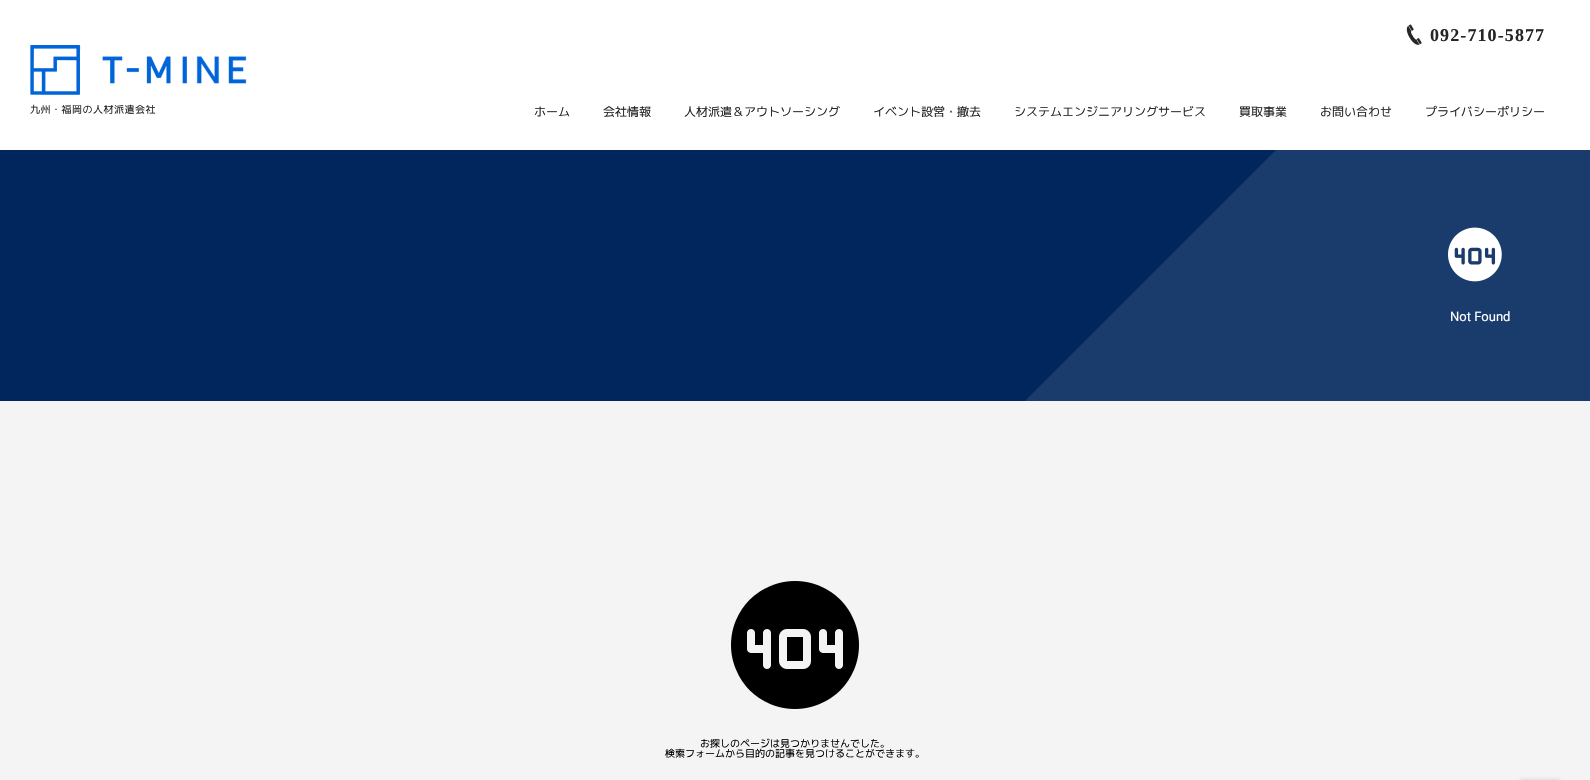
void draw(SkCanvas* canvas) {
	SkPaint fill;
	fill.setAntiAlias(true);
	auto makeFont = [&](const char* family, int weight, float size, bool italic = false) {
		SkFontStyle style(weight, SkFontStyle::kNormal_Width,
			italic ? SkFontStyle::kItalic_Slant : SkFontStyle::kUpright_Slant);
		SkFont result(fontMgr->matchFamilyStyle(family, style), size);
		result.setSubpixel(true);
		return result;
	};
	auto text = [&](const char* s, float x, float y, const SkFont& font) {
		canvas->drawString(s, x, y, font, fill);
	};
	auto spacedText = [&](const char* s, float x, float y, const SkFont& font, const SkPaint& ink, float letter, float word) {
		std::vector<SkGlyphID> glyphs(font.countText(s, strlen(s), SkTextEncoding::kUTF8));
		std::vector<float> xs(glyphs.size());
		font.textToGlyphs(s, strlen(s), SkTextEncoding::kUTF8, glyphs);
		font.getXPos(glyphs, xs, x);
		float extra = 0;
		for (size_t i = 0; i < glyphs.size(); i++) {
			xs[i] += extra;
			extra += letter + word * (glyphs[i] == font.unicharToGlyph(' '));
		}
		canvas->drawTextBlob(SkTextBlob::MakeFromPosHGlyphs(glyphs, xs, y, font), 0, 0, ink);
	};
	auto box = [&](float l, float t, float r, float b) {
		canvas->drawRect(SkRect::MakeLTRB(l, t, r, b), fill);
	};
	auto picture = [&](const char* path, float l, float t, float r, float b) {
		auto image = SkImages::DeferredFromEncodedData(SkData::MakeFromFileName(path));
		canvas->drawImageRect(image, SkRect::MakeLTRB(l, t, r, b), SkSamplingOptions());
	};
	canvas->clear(0xFFF4F4F4);
	fill.setColor(0xFFFFFFFF);
	box(0, 0, 1590, 150);
	picture("image0.png", 30, 45, 247, 95);
	picture("image1.png", 1406, 24, 1422, 45);
	fill.setColor(0xFF00265D);
	box(0, 150, 1276, 401);
	canvas->save();
	canvas->clipRect(SkRect::MakeLTRB(0, 150, 1590, 401));
	fill.setColor(0xFF1A3C6D);
	canvas->drawPath(SkPathBuilder().moveTo(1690, -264).lineTo(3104, 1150).lineTo(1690, 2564).lineTo(276, 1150).close().detach(), fill);
	canvas->restore();
	picture("image2.png", 1448, 227, 1502, 282);
	picture("image3.png", 731, 581, 859, 709);
	fill.setColor(0x3D626262);
	fill.setMaskFilter(SkMaskFilter::MakeBlur(kNormal_SkBlurStyle, 2));
	canvas->drawRect(SkRect::MakeLTRB(1520, 780, 1560, 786), fill);
	fill.setMaskFilter(nullptr);
	auto font1 = makeFont("M PLUS 1p", 400, 10);
	fill.setColor(0xFF262626);
	spacedText("九州・福岡の人材派遣会社", 30, 113, font1, fill, 0.5f, 0);
	auto font2 = makeFont("Liberation Serif", 700, 18);
	spacedText("092-710-5877", 1430, 41, font2, fill, 1.1f, 0);
	auto font3 = makeFont("M PLUS 1p", 400, 12);
	text("ホーム", 534, 116, font3);
	text("会社情報", 603, 116, font3);
	text("人材派遣＆アウトソーシング", 684, 116, font3);
	text("イベント設営・撤去", 873, 116, font3);
	text("システムエンジニアリングサービス", 1014, 116, font3);
	text("買取事業", 1239, 116, font3);
	text("お問い合わせ", 1320, 116, font3);
	text("プライバシーポリシー", 1425, 116, font3);
	auto font4 = makeFont("Roboto", 400, 13);
	fill.setColor(0xFFFFFFFF);
	text("Not Found", 1450, 321, font4);
	fill.setColor(0xFF000000);
	text("お探しのページは見つかりませんでした。", 700, 747, font1);
	text("検索フォームから目的の記事を見つけることができます。", 665, 757, font1);
}
